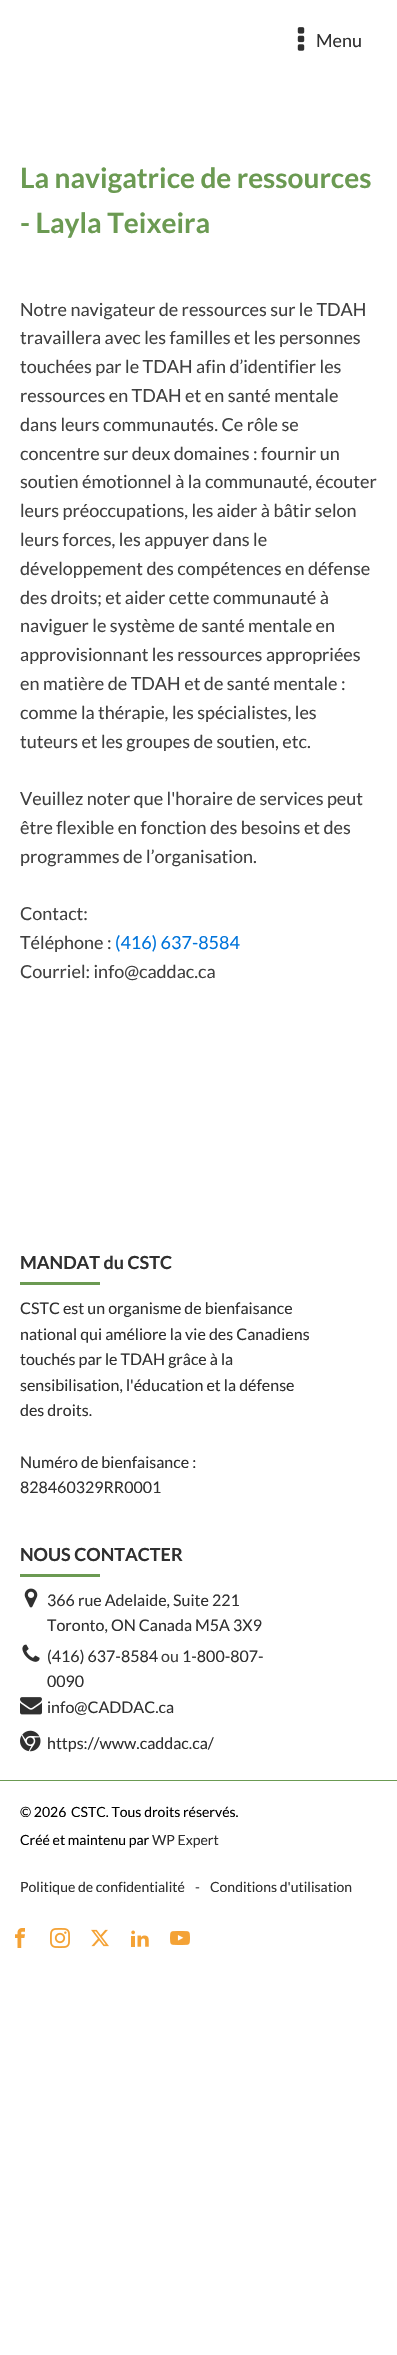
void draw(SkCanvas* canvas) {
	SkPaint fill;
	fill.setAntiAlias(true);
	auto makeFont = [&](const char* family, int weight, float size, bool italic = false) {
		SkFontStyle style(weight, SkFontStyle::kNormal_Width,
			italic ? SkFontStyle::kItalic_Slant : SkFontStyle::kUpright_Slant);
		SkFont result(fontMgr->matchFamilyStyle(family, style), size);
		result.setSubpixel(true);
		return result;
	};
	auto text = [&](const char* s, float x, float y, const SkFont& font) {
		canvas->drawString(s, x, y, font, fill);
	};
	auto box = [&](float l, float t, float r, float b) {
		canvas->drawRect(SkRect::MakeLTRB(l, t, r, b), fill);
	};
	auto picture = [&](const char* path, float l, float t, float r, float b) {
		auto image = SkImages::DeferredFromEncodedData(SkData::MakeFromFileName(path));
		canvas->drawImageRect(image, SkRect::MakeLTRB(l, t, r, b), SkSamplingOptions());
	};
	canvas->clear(0xFFFFFFFF);
	picture("image0.png", 297, 27, 305, 51);
	fill.setColor(0xFF6B9A52);
	box(0, 1780, 397, 1781);
	box(20, 1282, 100, 1285);
	box(20, 1574, 100, 1577);
	picture("image1.png", 24, 1588, 38, 1608);
	picture("image2.png", 22, 1644, 40, 1662);
	picture("image3.png", 20, 1697, 42, 1715);
	picture("image4.png", 20, 1730, 41, 1752);
	picture("image5.png", 15, 1928, 25, 1948);
	picture("image6.png", 50, 1928, 70, 1948);
	picture("image7.png", 91, 1929, 109, 1947);
	picture("image8.png", 131, 1930, 149, 1947);
	picture("image9.png", 170, 1931, 190, 1945);
	auto font1 = makeFont("Lato", 400, 18);
	fill.setColor(0xFF303030);
	text("Menu", 316, 47, font1);
	auto font2 = makeFont("Lato", 700, 28);
	fill.setColor(0xFF6B9A52);
	text("La navigatrice de ressources", 20, 188, font2);
	text("- Layla Teixeira", 20, 233, font2);
	fill.setColor(0xFF404040);
	text("Notre navigateur de ressources sur le TDAH", 20, 316, font1);
	text("travaillera avec les familles et les personnes", 20, 344, font1);
	text("touchées par le TDAH afin d’identifier les", 20, 373, font1);
	text("ressources en TDAH et en santé mentale", 20, 402, font1);
	text("dans leurs communautés. Ce rôle se", 20, 431, font1);
	text("concentre sur deux domaines : fournir un", 20, 460, font1);
	text("soutien émotionnel à la communauté, écouter", 20, 488, font1);
	text("leurs préoccupations, les aider à bâtir selon", 20, 517, font1);
	text("leurs forces, les appuyer dans le", 20, 546, font1);
	text("développement des compétences en défense", 20, 575, font1);
	text("des droits; et aider cette communauté à", 20, 604, font1);
	text("naviguer le système de santé mentale en", 20, 632, font1);
	text("approvisionnant les ressources appropriées", 20, 661, font1);
	text("en matière de TDAH et de santé mentale :", 20, 690, font1);
	text("comme la thérapie, les spécialistes, les", 20, 719, font1);
	text("tuteurs et les groupes de soutien, etc.", 20, 748, font1);
	text("Veuillez noter que l'horaire de services peut", 20, 805, font1);
	text("être flexible en fonction des besoins et des", 20, 834, font1);
	text("programmes de l’organisation.", 20, 863, font1);
	text("Contact:", 20, 920, font1);
	text("Téléphone :", 20, 949, font1);
	fill.setColor(0xFF0074DB);
	text("(416) 637-8584", 115, 949, font1);
	fill.setColor(0xFF404040);
	text("Courriel: info@caddac.ca", 20, 978, font1);
	auto font3 = makeFont("Lato", 700, 18);
	fill.setColor(0xFF303030);
	text("MANDAT du CSTC", 20, 1269, font3);
	auto font4 = makeFont("Lato", 400, 16);
	text("CSTC est un organisme de bienfaisance", 20, 1314, font4);
	text("national qui améliore la vie des Canadiens", 20, 1340, font4);
	text("touchés par le TDAH grâce à la", 20, 1365, font4);
	text("sensibilisation, l'éducation et la défense", 20, 1391, font4);
	text("des droits.", 20, 1416, font4);
	text("Numéro de bienfaisance :", 20, 1468, font4);
	text("828460329RR0001", 20, 1493, font4);
	text("NOUS CONTACTER", 20, 1561, font3);
	text("366 rue Adelaide, Suite 221", 47, 1606, font4);
	text("Toronto, ON Canada M5A 3X9", 47, 1631, font4);
	text("(416) 637-8584", 47, 1662, font4);
	fill.setColor(0xFF404040);
	text("ou", 161, 1662, font4);
	fill.setColor(0xFF303030);
	text("1-800-807-", 182, 1662, font4);
	text("0090", 47, 1687, font4);
	text("info@CADDAC.ca", 47, 1713, font4);
	text("https://www.caddac.ca/", 47, 1749, font4);
	auto font5 = makeFont("Lato", 400, 14);
	fill.setColor(0xFF000000);
	text("© 2026", 20, 1817, font5);
	text("CSTC. Tous droits réservés.", 71, 1817, font5);
	text("Créé et maintenu par", 20, 1845, font5);
	fill.setColor(0xFF303030);
	text("WP Expert", 152, 1845, font5);
	text("Politique de confidentialité", 20, 1892, font5);
	fill.setColor(0xFF404040);
	text("-", 195, 1892, font5);
	fill.setColor(0xFF303030);
	text("Conditions d'utilisation", 210, 1892, font5);
}
